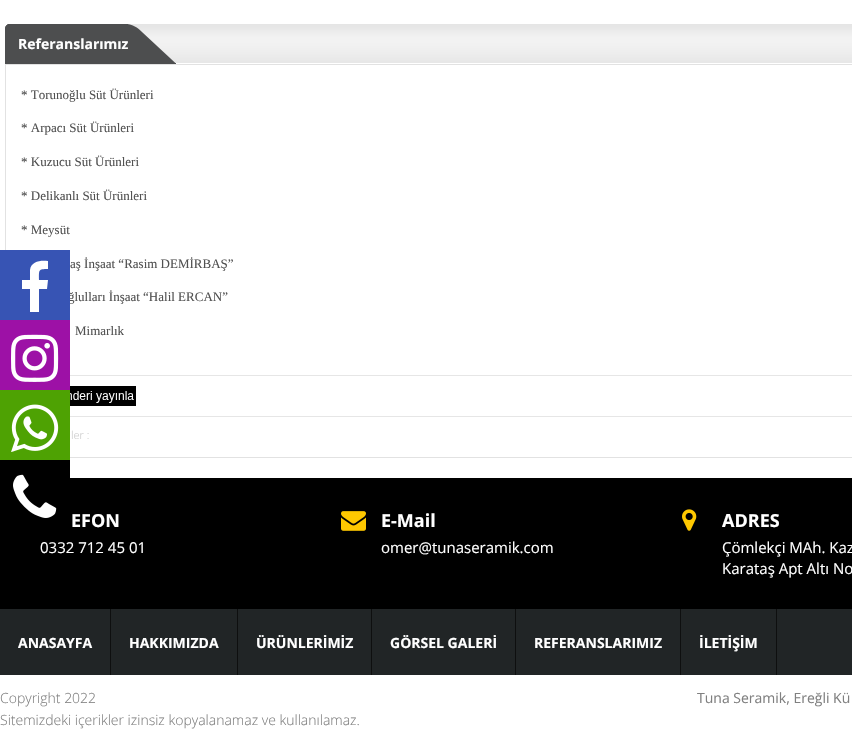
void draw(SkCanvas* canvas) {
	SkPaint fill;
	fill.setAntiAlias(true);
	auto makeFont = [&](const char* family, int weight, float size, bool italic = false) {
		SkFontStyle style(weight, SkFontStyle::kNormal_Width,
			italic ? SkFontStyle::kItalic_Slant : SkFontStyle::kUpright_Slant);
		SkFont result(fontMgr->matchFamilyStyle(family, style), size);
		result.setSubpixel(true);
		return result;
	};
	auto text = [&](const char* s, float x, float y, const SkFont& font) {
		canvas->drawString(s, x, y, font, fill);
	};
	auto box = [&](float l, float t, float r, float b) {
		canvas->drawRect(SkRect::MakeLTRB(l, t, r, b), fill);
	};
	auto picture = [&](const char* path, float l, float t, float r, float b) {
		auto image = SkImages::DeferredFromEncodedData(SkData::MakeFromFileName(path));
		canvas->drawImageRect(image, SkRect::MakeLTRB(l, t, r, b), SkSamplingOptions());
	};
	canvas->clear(0xFFFFFFFF);
	picture("image0.png", 5, 24, 852, 63);
	fill.setColor(0xFF4D4E4F);
	canvas->drawPath(SkPathBuilder().moveTo(10, 24).lineTo(176, 24).lineTo(176, 64).lineTo(5, 64).lineTo(5, 29).cubicTo(5, 26, 7, 24, 10, 24).close().detach(), fill);
	picture("image1.png", 128, 24, 176, 63);
	canvas->drawPath(SkPathBuilder().moveTo(10, 24).lineTo(128, 24).lineTo(128, 64).lineTo(5, 64).lineTo(5, 29).cubicTo(5, 26, 7, 24, 10, 24).close().detach(), fill);
	fill.setStyle(SkPaint::kStroke_Style);
	fill.setStrokeWidth(1);
	fill.setColor(0xFFE2E2E2);
	canvas->drawRect(SkRect::MakeLTRB(5.5f, 64.5f, 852.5f, 457.5f), fill);
	fill.setStyle(SkPaint::kFill_Style);
	fill.setColor(0xFFE6E6E6);
	box(70, 375, 852, 376);
	box(70, 416, 852, 417);
	picture("image2.png", 70, 386, 136, 406);
	fill.setColor(0xFF9D11A6);
	box(0, 320, 70, 390);
	picture("image3.png", 11, 334, 59, 382);
	fill.setColor(0xFF4EA203);
	box(0, 390, 70, 460);
	picture("image4.png", 11, 404, 59, 452);
	fill.setColor(0xFF000000);
	box(0, 460, 70, 478);
	box(0, 478, 852, 609);
	picture("image5.png", 13, 474, 57, 518);
	picture("image6.png", 341, 511, 366, 531);
	picture("image7.png", 682, 509, 697, 531);
	fill.setColor(0xFF212526);
	box(0, 609, 852, 675);
	fill.setColor(0xFF0E0F0F);
	box(110, 609, 111, 675);
	box(237, 609, 238, 675);
	box(371, 609, 372, 675);
	box(515, 609, 516, 675);
	box(680, 609, 681, 675);
	box(776, 609, 777, 675);
	auto font1 = makeFont("Open Sans", 700, 14);
	fill.setColor(0xFFFFFFFF);
	text("Referanslarımız", 18, 49, font1);
	auto font2 = makeFont("Liberation Serif", 400, 13);
	fill.setColor(0xFF515151);
	text("* Torunoğlu Süt Ürünleri", 21, 99, font2);
	text("* Arpacı Süt Ürünleri", 21, 132, font2);
	text("* Kuzucu Süt Ürünleri", 21, 166, font2);
	text("* Delikanlı Süt Ürünleri", 21, 200, font2);
	text("* Meysüt", 21, 234, font2);
	text("aş İnşaat “Rasim DEMİRBAŞ”", 70, 268, font2);
	text("ğlulları İnşaat “Halil ERCAN”", 68, 301, font2);
	text("Mimarlık", 75, 335, font2);
	auto font3 = makeFont("Open Sans", 300, 11);
	fill.setColor(0xFFCBCBCB);
	text("ler :", 71, 439, font3);
	fill.setColor(0xFF3754B4);
	box(0, 250, 70, 320);
	fill.setColor(0xFFFFFFFF);
	canvas->drawPath(SkPathBuilder().moveTo(48, 261).lineTo(48, 269).cubicTo(38, 269, 39, 270, 39, 280).lineTo(48, 280).lineTo(47, 289).lineTo(39, 289).lineTo(39, 312).lineTo(30, 312).lineTo(30, 289).lineTo(22, 289).lineTo(22, 280).lineTo(30, 280).lineTo(30, 270).cubicTo(31, 261, 41, 260, 48, 261).close().detach(), fill);
	auto font4 = makeFont("Open Sans", 700, 18);
	text("EFON", 71, 527, font4);
	auto font5 = makeFont("Open Sans", 400, 15);
	text("0332 712 45 01", 40, 553, font5);
	text("E-Mail", 381, 527, font4);
	text("omer@tunaseramik.com", 381, 553, font5);
	text("ADRES", 722, 527, font4);
	text("Çömlekçi MAh. Kaz", 722, 553, font5);
	text("Karataş Apt Altı No", 722, 574, font5);
	text("ANASAYFA", 18, 648, font1);
	text("HAKKIMIZDA", 129, 648, font1);
	text("ÜRÜNLERİMİZ", 256, 648, font1);
	text("GÖRSEL GALERİ", 390, 648, font1);
	text("REFERANSLARIMIZ", 534, 648, font1);
	text("İLETİŞİM", 699, 648, font1);
	auto font6 = makeFont("Open Sans", 300, 14);
	fill.setColor(0xFF808080);
	text("Copyright 2022", 0, 703, font6);
	text("Sitemizdeki içerikler izinsiz kopyalanamaz ve kullanılamaz.", 0, 725, font6);
	auto font7 = makeFont("Open Sans", 400, 14);
	text("Tuna Seramik, Ereğli Kü", 697, 703, font7);
}
